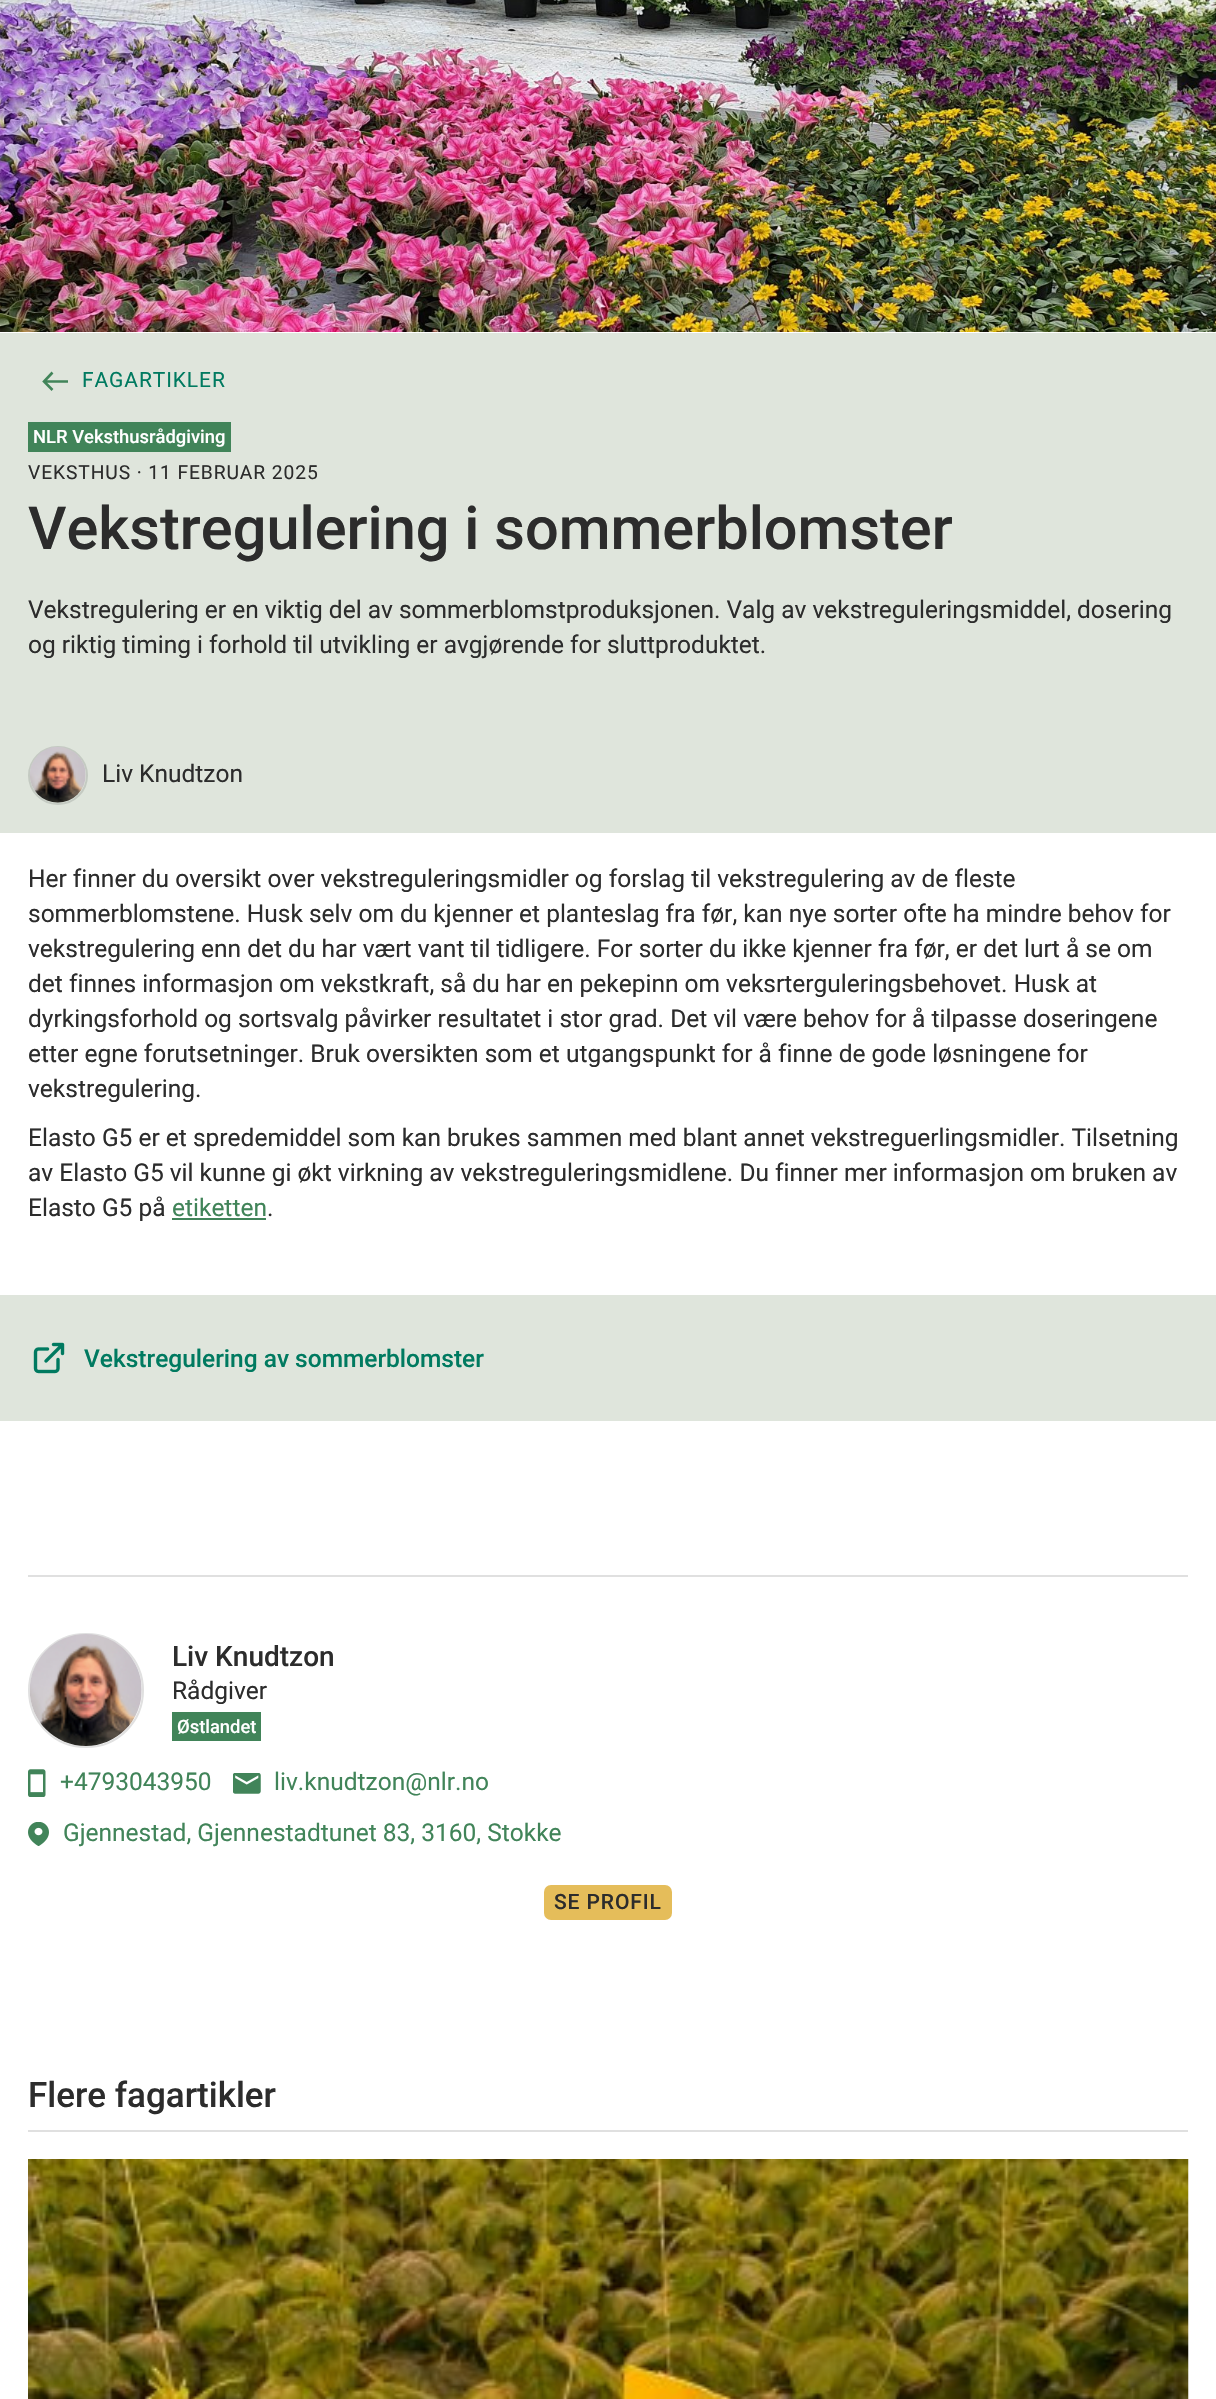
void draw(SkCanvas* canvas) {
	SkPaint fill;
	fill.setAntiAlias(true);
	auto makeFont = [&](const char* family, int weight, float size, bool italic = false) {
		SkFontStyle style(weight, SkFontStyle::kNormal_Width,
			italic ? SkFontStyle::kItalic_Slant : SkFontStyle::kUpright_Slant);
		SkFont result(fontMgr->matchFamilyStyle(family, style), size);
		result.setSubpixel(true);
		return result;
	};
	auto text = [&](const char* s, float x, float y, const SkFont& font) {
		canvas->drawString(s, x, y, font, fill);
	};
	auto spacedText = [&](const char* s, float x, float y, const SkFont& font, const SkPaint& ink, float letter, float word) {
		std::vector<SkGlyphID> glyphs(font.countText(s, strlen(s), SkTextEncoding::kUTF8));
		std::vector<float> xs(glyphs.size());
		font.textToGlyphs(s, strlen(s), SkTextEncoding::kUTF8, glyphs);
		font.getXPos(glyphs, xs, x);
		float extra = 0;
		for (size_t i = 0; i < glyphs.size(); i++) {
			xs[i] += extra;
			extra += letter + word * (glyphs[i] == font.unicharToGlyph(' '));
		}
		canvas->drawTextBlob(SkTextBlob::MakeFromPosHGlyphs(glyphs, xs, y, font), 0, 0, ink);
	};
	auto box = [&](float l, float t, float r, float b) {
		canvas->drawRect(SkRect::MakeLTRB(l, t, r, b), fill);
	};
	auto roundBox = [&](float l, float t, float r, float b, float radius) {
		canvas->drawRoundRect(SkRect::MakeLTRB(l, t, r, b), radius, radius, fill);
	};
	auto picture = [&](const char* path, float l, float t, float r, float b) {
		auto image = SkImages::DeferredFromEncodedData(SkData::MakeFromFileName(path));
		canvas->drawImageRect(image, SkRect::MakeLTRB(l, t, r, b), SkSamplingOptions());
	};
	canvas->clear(0xFFFFFFFF);
	picture("image0.png", 0, 0, 1216, 332);
	fill.setColor(0xFFDFE5DC);
	box(0, 333, 1216, 833);
	fill.setStyle(SkPaint::kStroke_Style);
	fill.setStrokeWidth(2.6f);
	fill.setColor(0xFF418459);
	canvas->drawPath(SkPathBuilder().moveTo(68, 381.5f).lineTo(44, 381.5f).moveTo(52.5f, 390).lineTo(44, 381.5f).lineTo(52.5f, 372.5f).detach(), fill);
	fill.setStyle(SkPaint::kFill_Style);
	box(28, 422, 231, 452);
	fill.setStyle(SkPaint::kStroke_Style);
	fill.setStrokeWidth(2);
	fill.setColor(0xFFC4CAC2);
	canvas->drawRoundRect(SkRect::MakeLTRB(29, 747, 87, 804), 28.5f, 28.5f, fill);
	picture("image1.png", 30, 747, 86, 803);
	fill.setStyle(SkPaint::kFill_Style);
	fill.setColor(0xFF418459);
	box(172, 1218, 266, 1220);
	fill.setColor(0xFFDFE5DC);
	box(0, 1295, 1216, 1421);
	picture("image2.png", 33, 1342, 65, 1374);
	fill.setColor(0xFFE0E0E0);
	box(28, 1575, 1188, 1577);
	fill.setStyle(SkPaint::kStroke_Style);
	canvas->drawRoundRect(SkRect::MakeLTRB(29, 1634, 143, 1747), 56.5f, 56.5f, fill);
	picture("image3.png", 30, 1634, 142, 1746);
	fill.setStyle(SkPaint::kFill_Style);
	fill.setColor(0xFF418459);
	box(172, 1712, 261, 1741);
	picture("image4.png", 28, 1769, 46, 1797);
	picture("image5.png", 233, 1773, 261, 1794);
	picture("image6.png", 28, 1822, 49, 1846);
	fill.setColor(0xFFE5BD5A);
	roundBox(544, 1885, 672, 1920, 7);
	fill.setColor(0xFFE0E0E0);
	box(28, 2130, 1188, 2132);
	picture("image7.png", 28, 2159, 1189, 2399);
	auto font1 = makeFont("Roboto", 400, 21);
	fill.setColor(0xFF007A60);
	spacedText("FAGARTIKLER", 82, 387, font1, fill, 0.9f, 0);
	auto font2 = makeFont("Roboto", 500, 18.4f);
	fill.setColor(0xFFFFFFFF);
	text("NLR Veksthusrådgiving", 33, 443, font2);
	auto font3 = makeFont("Roboto", 400, 19.25f);
	fill.setColor(0xFF2C2C2C);
	spacedText("VEKSTHUS · 11 FEBRUAR 2025", 28, 479, font3, fill, 0.9f, 0);
	auto font4 = makeFont("Roboto", 500, 59.5f);
	text("Vekstregulering i sommerblomster", 28, 549, font4);
	auto font5 = makeFont("Roboto", 400, 24.5f);
	text("Vekstregulering er en viktig del av sommerblomstproduksjonen. Valg av vekstreguleringsmiddel, dosering", 28, 618, font5);
	text("og riktig timing i forhold til utvikling er avgjørende for sluttproduktet.", 28, 653, font5);
	text("Liv Knudtzon", 102, 782, font5);
	text("Her finner du oversikt over vekstreguleringsmidler og forslag til vekstregulering av de fleste", 28, 887, font5);
	text("sommerblomstene. Husk selv om du kjenner et planteslag fra før, kan nye sorter ofte ha mindre behov for", 28, 922, font5);
	text("vekstregulering enn det du har vært vant til tidligere. For sorter du ikke kjenner fra før, er det lurt å se om", 28, 957, font5);
	text("det finnes informasjon om vekstkraft, så du har en pekepinn om veksrterguleringsbehovet. Husk at", 28, 992, font5);
	text("dyrkingsforhold og sortsvalg påvirker resultatet i stor grad. Det vil være behov for å tilpasse doseringene", 28, 1027, font5);
	text("etter egne forutsetninger. Bruk oversikten som et utgangspunkt for å finne de gode løsningene for", 28, 1062, font5);
	text("vekstregulering.", 28, 1097, font5);
	text("Elasto G5 er et spredemiddel som kan brukes sammen med blant annet vekstreguerlingsmidler. Tilsetning", 28, 1146, font5);
	text("av Elasto G5 vil kunne gi økt virkning av vekstreguleringsmidlene. Du finner mer informasjon om bruken av", 28, 1181, font5);
	text("Elasto G5 på", 28, 1216, font5);
	fill.setColor(0xFF418459);
	text("etiketten", 172, 1216, font5);
	fill.setColor(0xFF2C2C2C);
	text(".", 267, 1216, font5);
	auto font6 = makeFont("Roboto", 500, 24.5f);
	fill.setColor(0xFF007A60);
	text("Vekstregulering av sommerblomster", 84, 1367, font6);
	auto font7 = makeFont("Roboto", 500, 28);
	fill.setColor(0xFF2C2C2C);
	text("Liv Knudtzon", 172, 1666, font7);
	text("Rådgiver", 172, 1699, font5);
	fill.setColor(0xFFFFFFFF);
	text("Østlandet", 177, 1733, font2);
	fill.setColor(0xFF418459);
	text("+4793043950", 60, 1790, font5);
	text("liv.knudtzon@nlr.no", 274, 1790, font5);
	text("Gjennestad, Gjennestadtunet 83, 3160, Stokke", 63, 1841, font5);
	auto font8 = makeFont("Roboto", 500, 21);
	fill.setColor(0xFF2C2C2C);
	spacedText("SE PROFIL", 554, 1909, font8, fill, 0.9f, 0);
	auto font9 = makeFont("Roboto", 500, 35);
	text("Flere fagartikler", 28, 2107, font9);
}
